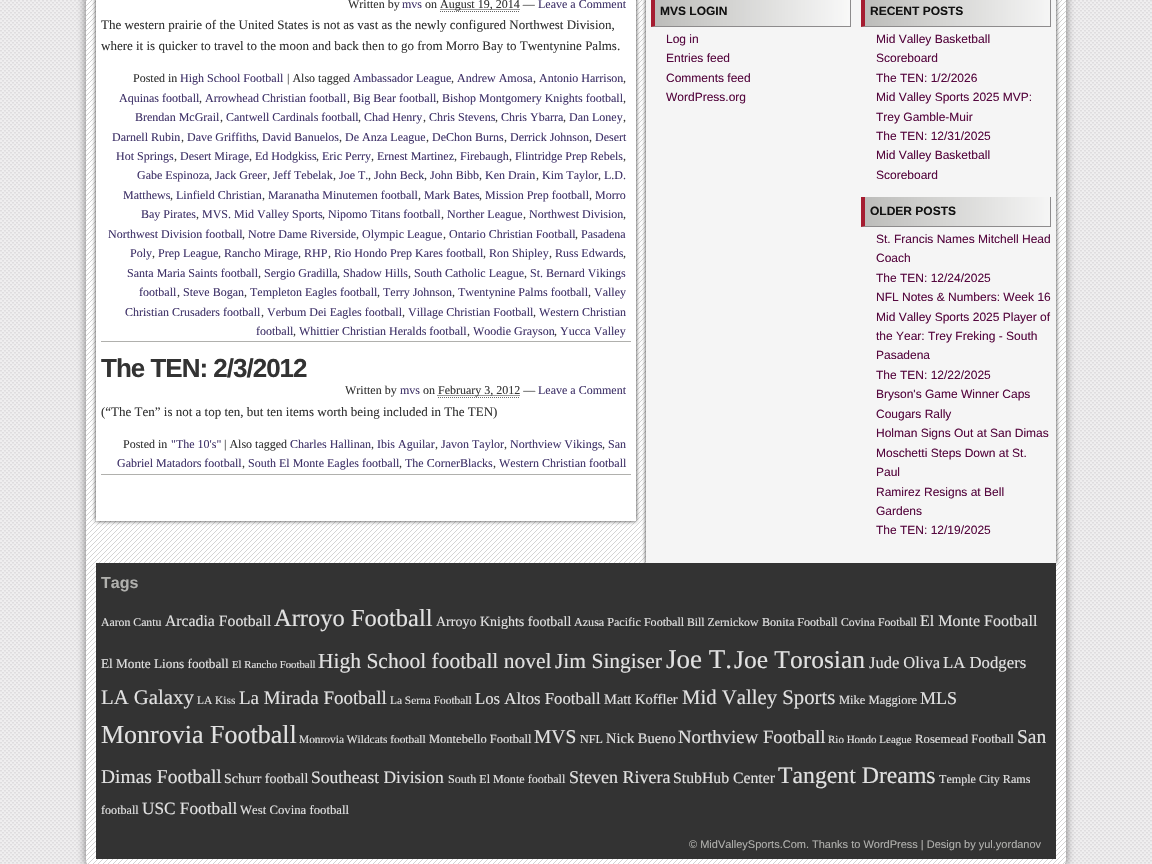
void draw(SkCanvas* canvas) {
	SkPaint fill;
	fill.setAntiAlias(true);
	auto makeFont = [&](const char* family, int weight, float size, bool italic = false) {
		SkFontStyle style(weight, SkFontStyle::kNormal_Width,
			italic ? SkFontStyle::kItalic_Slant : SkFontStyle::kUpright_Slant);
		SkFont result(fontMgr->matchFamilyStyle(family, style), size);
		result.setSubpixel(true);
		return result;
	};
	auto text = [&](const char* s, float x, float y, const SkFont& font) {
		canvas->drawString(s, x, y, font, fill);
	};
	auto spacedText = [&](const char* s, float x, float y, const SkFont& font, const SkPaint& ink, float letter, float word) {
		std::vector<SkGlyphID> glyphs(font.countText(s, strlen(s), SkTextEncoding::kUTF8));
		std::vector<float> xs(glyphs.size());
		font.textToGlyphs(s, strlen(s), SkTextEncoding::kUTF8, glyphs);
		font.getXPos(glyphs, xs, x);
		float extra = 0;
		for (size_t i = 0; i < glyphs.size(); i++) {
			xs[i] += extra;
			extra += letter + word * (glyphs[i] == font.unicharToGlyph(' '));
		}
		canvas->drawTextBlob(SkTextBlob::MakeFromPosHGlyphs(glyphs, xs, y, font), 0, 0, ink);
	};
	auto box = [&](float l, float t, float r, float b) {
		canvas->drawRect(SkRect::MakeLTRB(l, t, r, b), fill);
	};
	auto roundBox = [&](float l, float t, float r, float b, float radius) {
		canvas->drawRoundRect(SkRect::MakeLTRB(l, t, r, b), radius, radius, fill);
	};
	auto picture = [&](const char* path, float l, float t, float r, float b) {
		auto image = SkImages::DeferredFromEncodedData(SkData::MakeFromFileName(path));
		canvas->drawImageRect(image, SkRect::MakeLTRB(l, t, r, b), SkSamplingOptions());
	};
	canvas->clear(0xFFFFFFFF);
	picture("image0.png", 0, 0, 1152, 864);
	fill.setColor(0x80000000);
	fill.setMaskFilter(SkMaskFilter::MakeBlur(kNormal_SkBlurStyle, 4));
	canvas->drawRoundRect(SkRect::MakeLTRB(86, -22, 1066, 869), 10, 10, fill);
	fill.setMaskFilter(nullptr);
	fill.setColor(0xFFEBEBEB);
	roundBox(86, -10, 1066, 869, 10);
	picture("image1.png", 86, 0, 1066, 864);
	fill.setColor(0xFF333333);
	fill.setMaskFilter(SkMaskFilter::MakeBlur(kNormal_SkBlurStyle, 2));
	canvas->drawRect(SkRect::MakeLTRB(96, -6, 636, 521), fill);
	fill.setMaskFilter(nullptr);
	fill.setColor(0xFFFFFFFF);
	box(96, 0, 636, 521);
	fill.setStyle(SkPaint::kStroke_Style);
	fill.setStrokeWidth(1);
	fill.setColor(0xFF666666);
	fill.setPathEffect(SkDashPathEffect::Make({{1, 1}}, 0));
	canvas->drawPath(SkPathBuilder().moveTo(440, 11.5f).lineTo(520, 11.5f).detach(), fill);
	fill.setPathEffect(nullptr);
	fill.setColor(0xFF333333);
	fill.setPathEffect(SkDashPathEffect::Make({{1, 1}}, 0));
	canvas->drawPath(SkPathBuilder().moveTo(440.5f, 9.5f).lineTo(520, 9.5f).detach(), fill);
	fill.setPathEffect(nullptr);
	fill.setStyle(SkPaint::kFill_Style);
	fill.setColor(0xFFB0B0AD);
	box(101, 341, 631, 342);
	fill.setStyle(SkPaint::kStroke_Style);
	fill.setColor(0xFF666666);
	fill.setPathEffect(SkDashPathEffect::Make({{1, 1}}, 0));
	canvas->drawPath(SkPathBuilder().moveTo(438, 397.5f).lineTo(520, 397.5f).detach(), fill);
	fill.setPathEffect(nullptr);
	fill.setColor(0xFF333333);
	fill.setPathEffect(SkDashPathEffect::Make({{1, 1}}, 0));
	canvas->drawPath(SkPathBuilder().moveTo(437.5f, 395.5f).lineTo(520, 395.5f).detach(), fill);
	fill.setPathEffect(nullptr);
	fill.setStyle(SkPaint::kFill_Style);
	fill.setColor(0xFFB0B0AD);
	box(101, 474, 631, 475);
	fill.setColor(0xFF333333);
	box(96, 563, 1056, 859);
	fill.setMaskFilter(SkMaskFilter::MakeBlur(kNormal_SkBlurStyle, 2));
	canvas->drawRect(SkRect::MakeLTRB(646, -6, 1056, 563), fill);
	fill.setMaskFilter(nullptr);
	fill.setColor(0xFFF5F5F5);
	box(646, 0, 1056, 563);
	fill.setColor(0xFFB0B0AD);
	box(651, 0, 850, 27);
	picture("image2.png", 655, 0, 850, 26);
	fill.setColor(0xFF8D8B8C);
	box(850, 0, 851, 27);
	canvas->drawPath(SkPathBuilder().moveTo(851, 27).lineTo(651, 27).lineTo(655, 26).lineTo(850, 26).close().detach(), fill);
	fill.setColor(0xFFA51C30);
	canvas->drawPath(SkPathBuilder().moveTo(651, 27).lineTo(651, -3).lineTo(655, -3).lineTo(655, 26).close().detach(), fill);
	fill.setColor(0xFFB0B0AD);
	box(861, 0, 1050, 27);
	picture("image3.png", 865, 0, 1050, 26);
	fill.setColor(0xFF8D8B8C);
	box(1050, 0, 1051, 27);
	canvas->drawPath(SkPathBuilder().moveTo(1051, 27).lineTo(861, 27).lineTo(865, 26).lineTo(1050, 26).close().detach(), fill);
	fill.setColor(0xFFA51C30);
	canvas->drawPath(SkPathBuilder().moveTo(861, 27).lineTo(861, -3).lineTo(865, -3).lineTo(865, 26).close().detach(), fill);
	fill.setColor(0xFFB0B0AD);
	box(861, 197, 1050, 227);
	picture("image4.png", 865, 197, 1050, 226);
	fill.setColor(0xFF8D8B8C);
	box(1050, 197, 1051, 227);
	canvas->drawPath(SkPathBuilder().moveTo(1051, 227).lineTo(861, 227).lineTo(865, 226).lineTo(1050, 226).close().detach(), fill);
	fill.setColor(0xFFA51C30);
	canvas->drawPath(SkPathBuilder().moveTo(861, 227).lineTo(861, 197).lineTo(865, 197).lineTo(865, 226).close().detach(), fill);
	auto font1 = makeFont("Liberation Serif", 400, 12);
	fill.setColor(0xFF333333);
	text("Written by", 348, 8, font1);
	fill.setColor(0xFF403369);
	text("mvs", 402, 8, font1);
	fill.setColor(0xFF333333);
	text("on", 425, 8, font1);
	text("August 19, 2014 —", 440, 8, font1);
	fill.setColor(0xFF403369);
	text("Leave a Comment", 538, 8, font1);
	auto font2 = makeFont("Liberation Serif", 400, 13);
	fill.setColor(0xFF333333);
	text("The western prairie of the United States is not as vast as the newly configured Northwest Division,", 101, 29, font2);
	text("where it is quicker to travel to the moon and back then to go from Morro Bay to Twentynine Palms.", 101, 50, font2);
	text("Posted in", 133, 82, font1);
	fill.setColor(0xFF403369);
	text("High School Football", 180, 82, font1);
	fill.setColor(0xFF333333);
	text("| Also tagged", 287, 82, font1);
	fill.setColor(0xFF403369);
	text("Ambassador League", 353, 82, font1);
	fill.setColor(0xFF333333);
	text(",", 451, 82, font1);
	fill.setColor(0xFF403369);
	text("Andrew Amosa", 457, 82, font1);
	fill.setColor(0xFF333333);
	text(",", 533, 82, font1);
	fill.setColor(0xFF403369);
	text("Antonio Harrison", 539, 82, font1);
	fill.setColor(0xFF333333);
	text(",", 623, 82, font1);
	fill.setColor(0xFF403369);
	text("Aquinas football", 119, 102, font1);
	fill.setColor(0xFF333333);
	text(",", 199, 102, font1);
	fill.setColor(0xFF403369);
	text("Arrowhead Christian football", 205, 102, font1);
	fill.setColor(0xFF333333);
	text(",", 347, 102, font1);
	fill.setColor(0xFF403369);
	text("Big Bear football", 353, 102, font1);
	fill.setColor(0xFF333333);
	text(",", 436, 102, font1);
	fill.setColor(0xFF403369);
	text("Bishop Montgomery Knights football", 442, 102, font1);
	fill.setColor(0xFF333333);
	text(",", 623, 102, font1);
	fill.setColor(0xFF403369);
	text("Brendan McGrail", 135, 121, font1);
	fill.setColor(0xFF333333);
	text(",", 220, 121, font1);
	fill.setColor(0xFF403369);
	text("Cantwell Cardinals football", 226, 121, font1);
	fill.setColor(0xFF333333);
	text(",", 358, 121, font1);
	fill.setColor(0xFF403369);
	text("Chad Henry", 364, 121, font1);
	fill.setColor(0xFF333333);
	text(",", 423, 121, font1);
	fill.setColor(0xFF403369);
	text("Chris Stevens", 429, 121, font1);
	fill.setColor(0xFF333333);
	text(",", 495, 121, font1);
	fill.setColor(0xFF403369);
	text("Chris Ybarra", 501, 121, font1);
	fill.setColor(0xFF333333);
	text(",", 563, 121, font1);
	fill.setColor(0xFF403369);
	text("Dan Loney", 569, 121, font1);
	fill.setColor(0xFF333333);
	text(",", 623, 121, font1);
	fill.setColor(0xFF403369);
	text("Darnell Rubin", 112, 141, font1);
	fill.setColor(0xFF333333);
	text(",", 181, 141, font1);
	fill.setColor(0xFF403369);
	text("Dave Griffiths", 187, 141, font1);
	fill.setColor(0xFF333333);
	text(",", 256, 141, font1);
	fill.setColor(0xFF403369);
	text("David Banuelos", 262, 141, font1);
	fill.setColor(0xFF333333);
	text(",", 339, 141, font1);
	fill.setColor(0xFF403369);
	text("De Anza League", 345, 141, font1);
	fill.setColor(0xFF333333);
	text(",", 426, 141, font1);
	fill.setColor(0xFF403369);
	text("DeChon Burns", 432, 141, font1);
	fill.setColor(0xFF333333);
	text(",", 504, 141, font1);
	fill.setColor(0xFF403369);
	text("Derrick Johnson", 510, 141, font1);
	fill.setColor(0xFF333333);
	text(",", 589, 141, font1);
	fill.setColor(0xFF403369);
	text("Desert", 595, 141, font1);
	text("Hot Springs", 116, 160, font1);
	fill.setColor(0xFF333333);
	text(",", 174, 160, font1);
	fill.setColor(0xFF403369);
	text("Desert Mirage", 180, 160, font1);
	fill.setColor(0xFF333333);
	text(",", 249, 160, font1);
	fill.setColor(0xFF403369);
	text("Ed Hodgkiss", 255, 160, font1);
	fill.setColor(0xFF333333);
	text(",", 316, 160, font1);
	fill.setColor(0xFF403369);
	text("Eric Perry", 322, 160, font1);
	fill.setColor(0xFF333333);
	text(",", 371, 160, font1);
	fill.setColor(0xFF403369);
	text("Ernest Martinez", 377, 160, font1);
	fill.setColor(0xFF333333);
	text(",", 454, 160, font1);
	fill.setColor(0xFF403369);
	text("Firebaugh", 460, 160, font1);
	fill.setColor(0xFF333333);
	text(",", 509, 160, font1);
	fill.setColor(0xFF403369);
	text("Flintridge Prep Rebels", 515, 160, font1);
	fill.setColor(0xFF333333);
	text(",", 623, 160, font1);
	fill.setColor(0xFF403369);
	text("Gabe Espinoza", 137, 179, font1);
	fill.setColor(0xFF333333);
	text(",", 209, 179, font1);
	fill.setColor(0xFF403369);
	text("Jack Greer", 215, 179, font1);
	fill.setColor(0xFF333333);
	text(",", 267, 179, font1);
	fill.setColor(0xFF403369);
	text("Jeff Tebelak", 273, 179, font1);
	fill.setColor(0xFF333333);
	text(",", 333, 179, font1);
	fill.setColor(0xFF403369);
	text("Joe T.", 339, 179, font1);
	fill.setColor(0xFF333333);
	text(",", 368, 179, font1);
	fill.setColor(0xFF403369);
	text("John Beck", 374, 179, font1);
	fill.setColor(0xFF333333);
	text(",", 424, 179, font1);
	fill.setColor(0xFF403369);
	text("John Bibb", 430, 179, font1);
	fill.setColor(0xFF333333);
	text(",", 479, 179, font1);
	fill.setColor(0xFF403369);
	text("Ken Drain", 485, 179, font1);
	fill.setColor(0xFF333333);
	text(",", 536, 179, font1);
	fill.setColor(0xFF403369);
	text("Kim Taylor", 542, 179, font1);
	fill.setColor(0xFF333333);
	text(",", 598, 179, font1);
	fill.setColor(0xFF403369);
	text("L.D.", 604, 179, font1);
	text("Matthews", 123, 199, font1);
	fill.setColor(0xFF333333);
	text(",", 170, 199, font1);
	fill.setColor(0xFF403369);
	text("Linfield Christian", 176, 199, font1);
	fill.setColor(0xFF333333);
	text(",", 262, 199, font1);
	fill.setColor(0xFF403369);
	text("Maranatha Minutemen football", 268, 199, font1);
	fill.setColor(0xFF333333);
	text(",", 418, 199, font1);
	fill.setColor(0xFF403369);
	text("Mark Bates", 424, 199, font1);
	fill.setColor(0xFF333333);
	text(",", 479, 199, font1);
	fill.setColor(0xFF403369);
	text("Mission Prep football", 485, 199, font1);
	fill.setColor(0xFF333333);
	text(",", 589, 199, font1);
	fill.setColor(0xFF403369);
	text("Morro", 595, 199, font1);
	text("Bay Pirates", 141, 218, font1);
	fill.setColor(0xFF333333);
	text(",", 196, 218, font1);
	fill.setColor(0xFF403369);
	text("MVS. Mid Valley Sports", 202, 218, font1);
	fill.setColor(0xFF333333);
	text(",", 322, 218, font1);
	fill.setColor(0xFF403369);
	text("Nipomo Titans football", 328, 218, font1);
	fill.setColor(0xFF333333);
	text(",", 441, 218, font1);
	fill.setColor(0xFF403369);
	text("Norther League", 447, 218, font1);
	fill.setColor(0xFF333333);
	text(",", 523, 218, font1);
	fill.setColor(0xFF403369);
	text("Northwest Division", 529, 218, font1);
	fill.setColor(0xFF333333);
	text(",", 623, 218, font1);
	fill.setColor(0xFF403369);
	text("Northwest Division football", 108, 238, font1);
	fill.setColor(0xFF333333);
	text(",", 242, 238, font1);
	fill.setColor(0xFF403369);
	text("Notre Dame Riverside", 248, 238, font1);
	fill.setColor(0xFF333333);
	text(",", 356, 238, font1);
	fill.setColor(0xFF403369);
	text("Olympic League", 362, 238, font1);
	fill.setColor(0xFF333333);
	text(",", 443, 238, font1);
	fill.setColor(0xFF403369);
	text("Ontario Christian Football", 449, 238, font1);
	fill.setColor(0xFF333333);
	text(",", 575, 238, font1);
	fill.setColor(0xFF403369);
	text("Pasadena", 581, 238, font1);
	text("Poly", 130, 257, font1);
	fill.setColor(0xFF333333);
	text(",", 152, 257, font1);
	fill.setColor(0xFF403369);
	text("Prep League", 158, 257, font1);
	fill.setColor(0xFF333333);
	text(",", 218, 257, font1);
	fill.setColor(0xFF403369);
	text("Rancho Mirage", 224, 257, font1);
	fill.setColor(0xFF333333);
	text(",", 298, 257, font1);
	fill.setColor(0xFF403369);
	text("RHP", 304, 257, font1);
	fill.setColor(0xFF333333);
	text(",", 328, 257, font1);
	fill.setColor(0xFF403369);
	text("Rio Hondo Prep Kares football", 334, 257, font1);
	fill.setColor(0xFF333333);
	text(",", 483, 257, font1);
	fill.setColor(0xFF403369);
	text("Ron Shipley", 489, 257, font1);
	fill.setColor(0xFF333333);
	text(",", 549, 257, font1);
	fill.setColor(0xFF403369);
	text("Russ Edwards", 555, 257, font1);
	fill.setColor(0xFF333333);
	text(",", 623, 257, font1);
	fill.setColor(0xFF403369);
	text("Santa Maria Saints football", 127, 277, font1);
	fill.setColor(0xFF333333);
	text(",", 258, 277, font1);
	fill.setColor(0xFF403369);
	text("Sergio Gradilla", 264, 277, font1);
	fill.setColor(0xFF333333);
	text(",", 337, 277, font1);
	fill.setColor(0xFF403369);
	text("Shadow Hills", 343, 277, font1);
	fill.setColor(0xFF333333);
	text(",", 408, 277, font1);
	fill.setColor(0xFF403369);
	text("South Catholic League", 414, 277, font1);
	fill.setColor(0xFF333333);
	text(",", 524, 277, font1);
	fill.setColor(0xFF403369);
	text("St. Bernard Vikings", 530, 277, font1);
	text("football", 139, 296, font1);
	fill.setColor(0xFF333333);
	text(",", 177, 296, font1);
	fill.setColor(0xFF403369);
	text("Steve Bogan", 183, 296, font1);
	fill.setColor(0xFF333333);
	text(",", 244, 296, font1);
	fill.setColor(0xFF403369);
	text("Templeton Eagles football", 250, 296, font1);
	fill.setColor(0xFF333333);
	text(",", 377, 296, font1);
	fill.setColor(0xFF403369);
	text("Terry Johnson", 383, 296, font1);
	fill.setColor(0xFF333333);
	text(",", 452, 296, font1);
	fill.setColor(0xFF403369);
	text("Twentynine Palms football", 458, 296, font1);
	fill.setColor(0xFF333333);
	text(",", 588, 296, font1);
	fill.setColor(0xFF403369);
	text("Valley", 594, 296, font1);
	text("Christian Crusaders football", 125, 316, font1);
	fill.setColor(0xFF333333);
	text(",", 261, 316, font1);
	fill.setColor(0xFF403369);
	text("Verbum Dei Eagles football", 267, 316, font1);
	fill.setColor(0xFF333333);
	text(",", 402, 316, font1);
	fill.setColor(0xFF403369);
	text("Village Christian Football", 408, 316, font1);
	fill.setColor(0xFF333333);
	text(",", 533, 316, font1);
	fill.setColor(0xFF403369);
	text("Western Christian", 539, 316, font1);
	text("football", 256, 335, font1);
	fill.setColor(0xFF333333);
	text(",", 293, 335, font1);
	fill.setColor(0xFF403369);
	text("Whittier Christian Heralds football", 299, 335, font1);
	fill.setColor(0xFF333333);
	text(",", 467, 335, font1);
	fill.setColor(0xFF403369);
	text("Woodie Grayson", 473, 335, font1);
	fill.setColor(0xFF333333);
	text(",", 554, 335, font1);
	fill.setColor(0xFF403369);
	text("Yucca Valley", 560, 335, font1);
	auto font3 = makeFont("Liberation Sans", 700, 26);
	fill.setColor(0xFF333333);
	spacedText("The TEN: 2/3/2012", 101, 377, font3, fill, -1, 0);
	text("Written by", 345, 394, font1);
	fill.setColor(0xFF403369);
	text("mvs", 400, 394, font1);
	fill.setColor(0xFF333333);
	text("on", 423, 394, font1);
	text("February 3, 2012 —", 438, 394, font1);
	fill.setColor(0xFF403369);
	text("Leave a Comment", 538, 394, font1);
	fill.setColor(0xFF333333);
	text("(“The Ten” is not a top ten, but ten items worth being included in The TEN)", 101, 416, font2);
	text("Posted in", 123, 448, font1);
	fill.setColor(0xFF403369);
	text("\"The 10's\"", 171, 448, font1);
	fill.setColor(0xFF333333);
	text("| Also tagged", 224, 448, font1);
	fill.setColor(0xFF403369);
	text("Charles Hallinan", 290, 448, font1);
	fill.setColor(0xFF333333);
	text(",", 371, 448, font1);
	fill.setColor(0xFF403369);
	text("Ibis Aguilar", 377, 448, font1);
	fill.setColor(0xFF333333);
	text(",", 435, 448, font1);
	fill.setColor(0xFF403369);
	text("Javon Taylor", 441, 448, font1);
	fill.setColor(0xFF333333);
	text(",", 504, 448, font1);
	fill.setColor(0xFF403369);
	text("Northview Vikings", 510, 448, font1);
	fill.setColor(0xFF333333);
	text(",", 602, 448, font1);
	fill.setColor(0xFF403369);
	text("San", 608, 448, font1);
	text("Gabriel Matadors football", 117, 467, font1);
	fill.setColor(0xFF333333);
	text(",", 242, 467, font1);
	fill.setColor(0xFF403369);
	text("South El Monte Eagles football", 248, 467, font1);
	fill.setColor(0xFF333333);
	text(",", 399, 467, font1);
	fill.setColor(0xFF403369);
	text("The CornerBlacks", 405, 467, font1);
	fill.setColor(0xFF333333);
	text(",", 493, 467, font1);
	fill.setColor(0xFF403369);
	text("Western Christian football", 499, 467, font1);
	auto font4 = makeFont("Liberation Sans", 700, 12);
	fill.setColor(0xFF111111);
	text("MVS LOGIN", 660, 15, font4);
	auto font5 = makeFont("Liberation Sans", 400, 12);
	fill.setColor(0xFF55073E);
	text("Log in", 666, 43, font5);
	text("Entries feed", 666, 62, font5);
	text("Comments feed", 666, 82, font5);
	text("WordPress.org", 666, 101, font5);
	fill.setColor(0xFF111111);
	text("RECENT POSTS", 870, 15, font4);
	fill.setColor(0xFF55073E);
	text("Mid Valley Basketball", 876, 43, font5);
	text("Scoreboard", 876, 62, font5);
	text("The TEN: 1/2/2026", 876, 82, font5);
	text("Mid Valley Sports 2025 MVP:", 876, 101, font5);
	text("Trey Gamble-Muir", 876, 121, font5);
	text("The TEN: 12/31/2025", 876, 140, font5);
	text("Mid Valley Basketball", 876, 159, font5);
	text("Scoreboard", 876, 179, font5);
	fill.setColor(0xFF111111);
	text("OLDER POSTS", 870, 215, font4);
	fill.setColor(0xFF55073E);
	text("St. Francis Names Mitchell Head", 876, 243, font5);
	text("Coach", 876, 262, font5);
	text("The TEN: 12/24/2025", 876, 282, font5);
	text("NFL Notes & Numbers: Week 16", 876, 301, font5);
	text("Mid Valley Sports 2025 Player of", 876, 321, font5);
	text("the Year: Trey Freking - South", 876, 340, font5);
	text("Pasadena", 876, 359, font5);
	text("The TEN: 12/22/2025", 876, 379, font5);
	text("Bryson's Game Winner Caps", 876, 398, font5);
	text("Cougars Rally", 876, 418, font5);
	text("Holman Signs Out at San Dimas", 876, 437, font5);
	text("Moschetti Steps Down at St.", 876, 457, font5);
	text("Paul", 876, 476, font5);
	text("Ramirez Resigns at Bell", 876, 496, font5);
	text("Gardens", 876, 515, font5);
	text("The TEN: 12/19/2025", 876, 534, font5);
	auto font6 = makeFont("Liberation Sans", 700, 16);
	fill.setColor(0xFFB0B0AD);
	text("Tags", 101, 588, font6);
	auto font7 = makeFont("Liberation Serif", 400, 11.75f);
	fill.setColor(0xFFE1E1E1);
	text("Aaron Cantu", 101, 626, font7);
	auto font8 = makeFont("Liberation Serif", 400, 15.75f);
	text("Arcadia Football", 165, 626, font8);
	auto font9 = makeFont("Liberation Serif", 400, 24.5f);
	text("Arroyo Football", 274, 626, font9);
	auto font10 = makeFont("Liberation Serif", 400, 14);
	text("Arroyo Knights football", 436, 626, font10);
	auto font11 = makeFont("Liberation Serif", 400, 12.1f);
	text("Azusa Pacific Football", 574, 626, font11);
	text("Bill Zernickow", 687, 626, font7);
	text("Bonita Football", 762, 626, font11);
	text("Covina Football", 841, 626, font7);
	auto font12 = makeFont("Liberation Serif", 400, 16);
	text("El Monte Football", 920, 626, font12);
	auto font13 = makeFont("Liberation Serif", 400, 13.25f);
	text("El Monte Lions football", 101, 668, font13);
	auto font14 = makeFont("Liberation Serif", 400, 10.75f);
	text("El Rancho Football", 232, 668, font14);
	auto font15 = makeFont("Liberation Serif", 400, 21.5f);
	text("High School football novel", 318, 668, font15);
	text("Jim Singiser", 555, 668, font15);
	auto font16 = makeFont("Liberation Serif", 400, 27);
	text("Joe T.", 666, 668, font16);
	auto font17 = makeFont("Liberation Serif", 400, 25.5f);
	text("Joe Torosian", 734, 668, font17);
	auto font18 = makeFont("Liberation Serif", 400, 16.5f);
	text("Jude Oliva", 869, 668, font18);
	auto font19 = makeFont("Liberation Serif", 400, 16.75f);
	text("LA Dodgers", 943, 668, font19);
	auto font20 = makeFont("Liberation Serif", 400, 20.75f);
	text("LA Galaxy", 101, 704, font20);
	auto font21 = makeFont("Liberation Serif", 400, 11.4f);
	text("LA Kiss", 197, 704, font21);
	auto font22 = makeFont("Liberation Serif", 400, 19);
	text("La Mirada Football", 239, 704, font22);
	text("La Serna Football", 390, 704, font21);
	text("Los Altos Football", 475, 704, font19);
	auto font23 = makeFont("Liberation Serif", 400, 14.5f);
	text("Matt Koffler", 604, 704, font23);
	text("Mid Valley Sports", 682, 704, font20);
	auto font24 = makeFont("Liberation Serif", 400, 12.5f);
	text("Mike Maggiore", 839, 704, font24);
	auto font25 = makeFont("Liberation Serif", 400, 18);
	text("MLS", 920, 704, font25);
	auto font26 = makeFont("Liberation Serif", 400, 26);
	text("Monrovia Football", 101, 743, font26);
	text("Monrovia Wildcats football", 299, 743, font21);
	text("Montebello Football", 429, 743, font24);
	auto font27 = makeFont("Liberation Serif", 400, 19.5f);
	text("MVS", 534, 743, font27);
	text("NFL", 580, 743, font11);
	text("Nick Bueno", 606, 743, font23);
	auto font28 = makeFont("Liberation Serif", 400, 18.75f);
	text("Northview Football", 678, 743, font28);
	auto font29 = makeFont("Liberation Serif", 400, 11);
	text("Rio Hondo League", 828, 743, font29);
	auto font30 = makeFont("Liberation Serif", 400, 12.75f);
	text("Rosemead Football", 915, 743, font30);
	text("San", 1017, 743, font27);
	text("Dimas Football", 101, 783, font27);
	text("Schurr football", 224, 783, font10);
	auto font31 = makeFont("Liberation Serif", 400, 17.5f);
	text("Southeast Division", 311, 783, font31);
	text("South El Monte football", 448, 783, font11);
	text("Steven Rivera", 569, 783, font25);
	text("StubHub Center", 673, 783, font8);
	auto font32 = makeFont("Liberation Serif", 400, 23.75f);
	text("Tangent Dreams", 778, 783, font32);
	text("Temple City Rams", 939, 783, font11);
	text("football", 101, 814, font11);
	auto font33 = makeFont("Liberation Serif", 400, 17.25f);
	text("USC Football", 142, 814, font33);
	text("West Covina football", 240, 814, font30);
	auto font34 = makeFont("Liberation Sans", 400, 11);
	fill.setColor(0xFFB0B0AD);
	text("© MidValleySports.Com. Thanks to WordPress | Design by yul.yordanov", 689, 848, font34);
}
